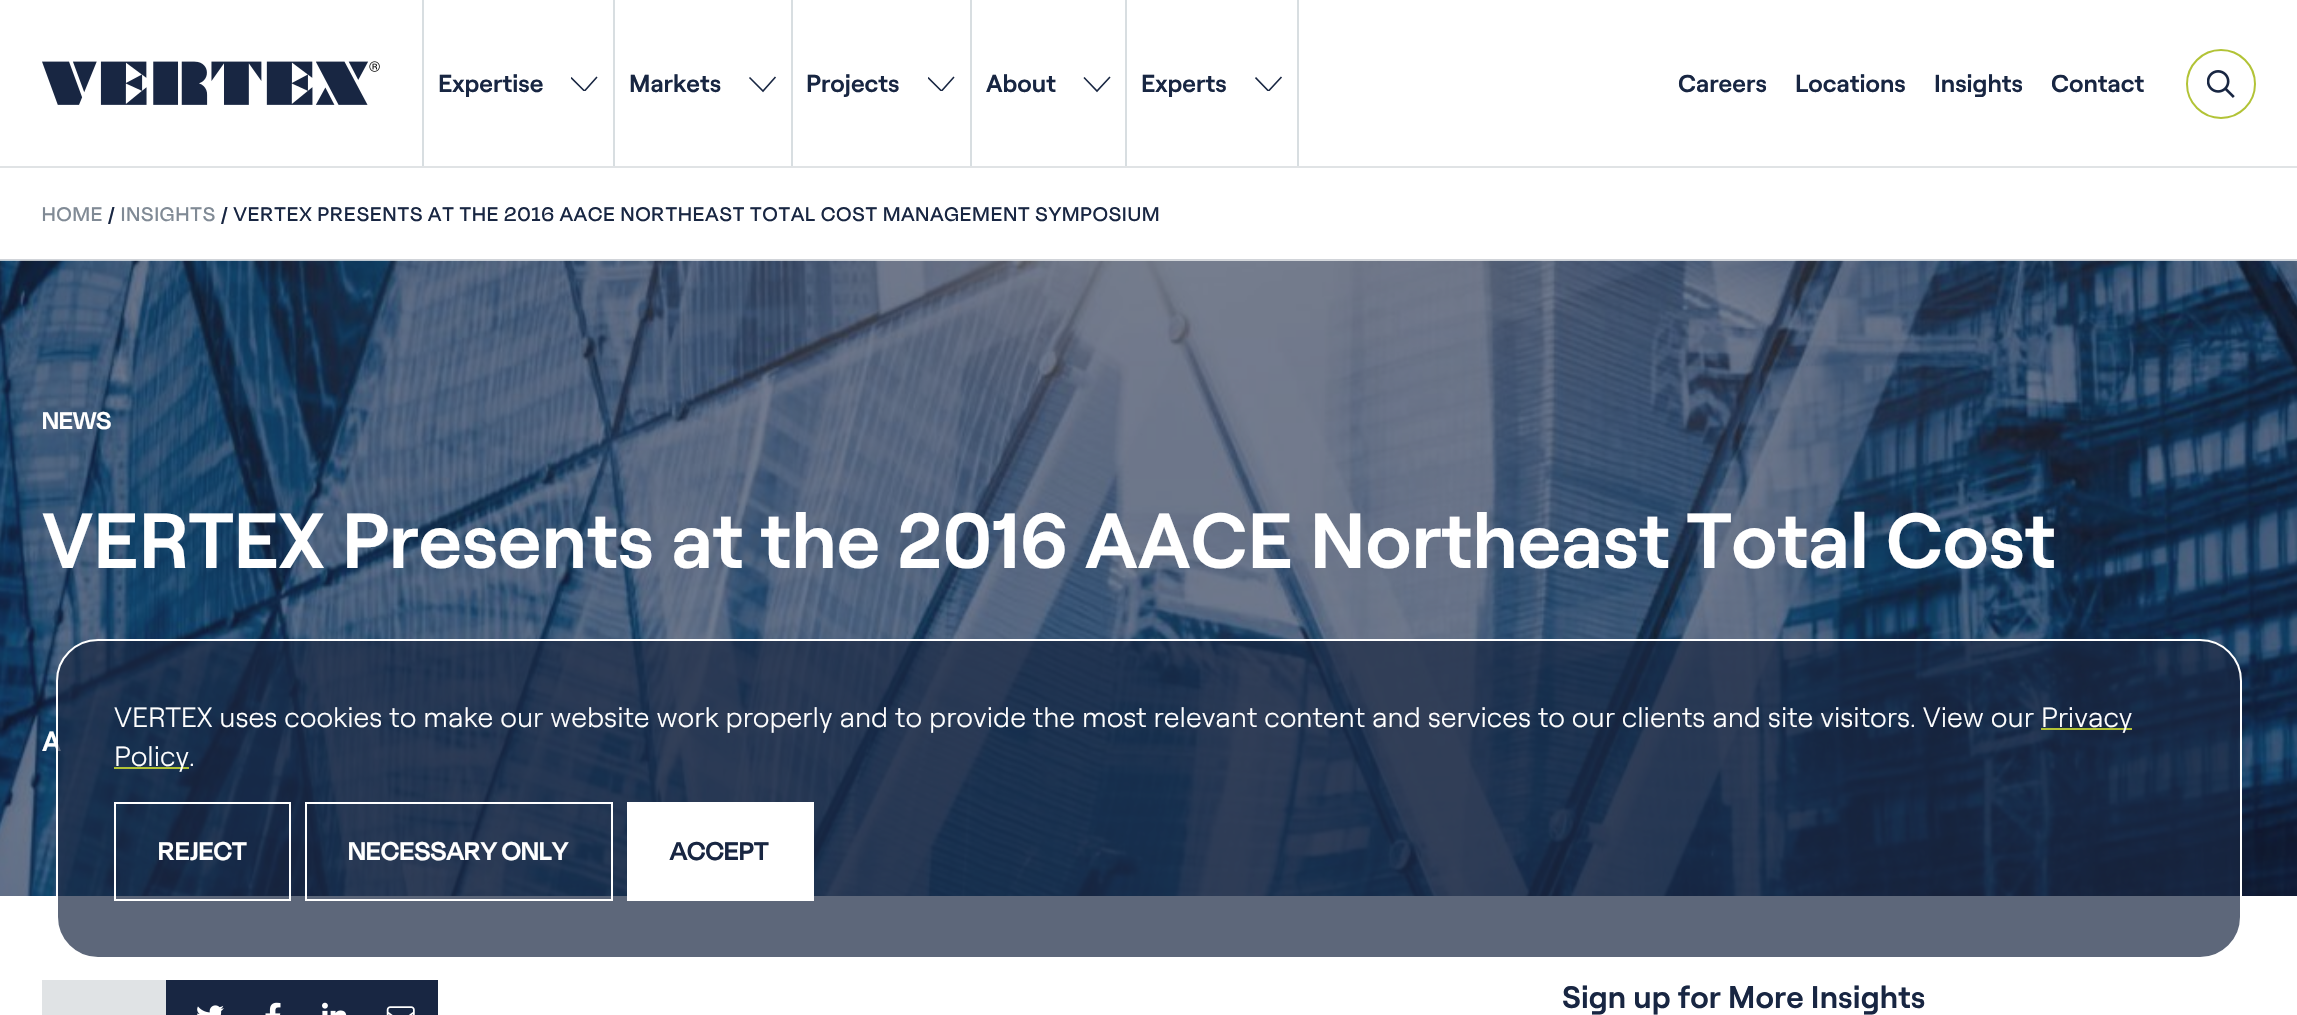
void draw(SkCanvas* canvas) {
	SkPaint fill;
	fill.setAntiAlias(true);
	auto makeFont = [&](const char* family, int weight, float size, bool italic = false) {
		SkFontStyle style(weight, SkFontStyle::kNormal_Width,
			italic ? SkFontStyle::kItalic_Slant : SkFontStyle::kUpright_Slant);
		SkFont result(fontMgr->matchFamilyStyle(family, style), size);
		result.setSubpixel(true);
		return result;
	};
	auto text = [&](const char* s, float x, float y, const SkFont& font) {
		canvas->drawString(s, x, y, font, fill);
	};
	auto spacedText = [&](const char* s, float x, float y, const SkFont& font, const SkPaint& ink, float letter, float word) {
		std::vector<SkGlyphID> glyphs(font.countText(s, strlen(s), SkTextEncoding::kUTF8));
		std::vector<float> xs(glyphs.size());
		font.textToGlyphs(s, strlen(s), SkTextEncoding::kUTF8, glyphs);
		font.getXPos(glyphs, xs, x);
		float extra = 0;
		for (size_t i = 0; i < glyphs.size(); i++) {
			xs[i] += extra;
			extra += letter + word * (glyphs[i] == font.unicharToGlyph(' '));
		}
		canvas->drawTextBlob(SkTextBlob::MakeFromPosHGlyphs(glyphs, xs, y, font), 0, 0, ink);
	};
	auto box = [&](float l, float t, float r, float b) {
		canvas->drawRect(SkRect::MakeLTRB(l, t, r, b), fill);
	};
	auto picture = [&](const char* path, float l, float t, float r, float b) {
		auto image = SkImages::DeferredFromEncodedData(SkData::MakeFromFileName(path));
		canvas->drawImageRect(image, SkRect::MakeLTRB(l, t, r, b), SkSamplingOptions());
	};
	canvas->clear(0xFFFFFFFF);
	fill.setColor(0xFFE0E3E5);
	box(0, 166, 2297, 168);
	picture("image0.png", 42, 61, 380, 105);
	fill.setColor(0xFFD8DEE1);
	box(1297, 0, 1299, 166);
	box(422, 0, 424, 166);
	canvas->save();
	canvas->clipRect(SkRect::MakeLTRB(571, 75, 599, 91));
	fill.setStyle(SkPaint::kStroke_Style);
	fill.setStrokeWidth(1.6f);
	fill.setColor(0xFF182642);
	canvas->drawPath(SkPathBuilder().moveTo(597, 77).lineTo(584.5f, 91).lineTo(571, 77.5f).detach(), fill);
	canvas->restore();
	fill.setStyle(SkPaint::kFill_Style);
	fill.setColor(0xFFD8DEE1);
	box(613, 0, 615, 166);
	fill.setStyle(SkPaint::kStroke_Style);
	fill.setColor(0xFF182642);
	canvas->drawPath(SkPathBuilder().moveTo(775.5f, 77).lineTo(763, 91).lineTo(749.5f, 77.5f).detach(), fill);
	fill.setStyle(SkPaint::kFill_Style);
	fill.setColor(0xFFD8DEE1);
	box(791, 0, 793, 166);
	canvas->save();
	canvas->clipRect(SkRect::MakeLTRB(928, 75, 956, 91));
	fill.setStyle(SkPaint::kStroke_Style);
	fill.setColor(0xFF182642);
	canvas->drawPath(SkPathBuilder().moveTo(954, 77).lineTo(941.5f, 91).lineTo(928, 77.5f).detach(), fill);
	canvas->restore();
	fill.setStyle(SkPaint::kFill_Style);
	fill.setColor(0xFFD8DEE1);
	box(970, 0, 972, 166);
	fill.setStyle(SkPaint::kStroke_Style);
	fill.setColor(0xFF182642);
	canvas->drawPath(SkPathBuilder().moveTo(1110, 77).lineTo(1097, 91).lineTo(1084, 77.5f).detach(), fill);
	fill.setStyle(SkPaint::kFill_Style);
	fill.setColor(0xFFD8DEE1);
	box(1125, 0, 1127, 166);
	canvas->save();
	canvas->clipRect(SkRect::MakeLTRB(1255, 75, 1283, 91));
	fill.setStyle(SkPaint::kStroke_Style);
	fill.setColor(0xFF182642);
	canvas->drawPath(SkPathBuilder().moveTo(1281.5f, 77).lineTo(1268.5f, 91).lineTo(1255.5f, 77.5f).detach(), fill);
	canvas->restore();
	picture("image1.png", 2207, 70, 2235, 98);
	fill.setStrokeWidth(2);
	fill.setColor(0xFFB2C336);
	canvas->drawCircle(2221, 84, 34, fill);
	fill.setStyle(SkPaint::kFill_Style);
	fill.setColor(0xFFD1D4D9);
	box(0, 259, 2297, 261);
	fill.setColor(0xFF182642);
	box(0, 261, 2297, 896);
	picture("image2.png", 0, 260, 2297, 896);
	box(166, 980, 438, 1015);
	fill.setColor(0xFFE0E3E5);
	box(42, 980, 166, 1015);
	picture("image3.png", 197, 1005, 224, 1015);
	picture("image4.png", 265, 1002, 281, 1015);
	picture("image5.png", 322, 1002, 347, 1015);
	picture("image6.png", 386, 1006, 415, 1015);
	auto font1 = makeFont("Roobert", 600, 24.5f);
	fill.setColor(0xFF182642);
	text("Expertise", 438, 92, font1);
	text("Markets", 629, 92, font1);
	text("Projects", 806, 92, font1);
	text("About", 986, 92, font1);
	text("Experts", 1141, 92, font1);
	text("Careers", 1678, 92, font1);
	text("Locations", 1795, 92, font1);
	text("Insights", 1934, 92, font1);
	text("Contact", 2051, 92, font1);
	auto font2 = makeFont("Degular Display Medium", 500, 22.75f);
	fill.setColor(0xFF808A95);
	spacedText("HOME", 42, 221, font2, fill, 1.4f, 0);
	fill.setColor(0xFF182642);
	spacedText("/", 108, 221, font2, fill, 1.4f, 0);
	fill.setColor(0xFF808A95);
	spacedText("INSIGHTS", 121, 221, font2, fill, 1.4f, 0);
	fill.setColor(0xFF182642);
	spacedText("/ VERTEX PRESENTS AT THE 2016 AACE NORTHEAST TOTAL COST MANAGEMENT SYMPOSIUM", 221, 221, font2, fill, 1.4f, 0);
	auto font3 = makeFont("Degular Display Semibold", 600, 28);
	fill.setColor(0xFFFFFFFF);
	spacedText("NEWS", 42, 429, font3, fill, 0.25f, 0);
	auto font4 = makeFont("Roobert", 600, 77.95f);
	spacedText("VERTEX Presents at the 2016 AACE Northeast Total Cost", 42, 568, font4, fill, -0.17f, 0);
	auto font5 = makeFont("Roobert", 600, 28);
	text("A", 42, 751, font5);
	fill.setColor(0xB3182642);
	canvas->drawRoundRect(SkRect::MakeLTRB(57, 640, 2241, 958), 41, 41, fill);
	fill.setStyle(SkPaint::kStroke_Style);
	fill.setColor(0xFFFFFFFF);
	canvas->drawRoundRect(SkRect::MakeLTRB(57, 640, 2241, 958), 41, 41, fill);
	auto font6 = makeFont("Roobert", 300, 28);
	fill.setStyle(SkPaint::kFill_Style);
	text("VERTEX uses cookies to make our website work properly and to provide the most relevant content and services to our clients and site visitors. View our", 114, 727, font6);
	fill.setColor(0xFFB2C336);
	box(2041, 728, 2132, 730);
	fill.setColor(0xFFFFFFFF);
	text("Privacy", 2041, 727, font6);
	fill.setColor(0xFFB2C336);
	box(114, 767, 189, 769);
	fill.setColor(0xFFFFFFFF);
	text("Policy.", 114, 766, font6);
	fill.setStyle(SkPaint::kStroke_Style);
	canvas->drawRect(SkRect::MakeLTRB(115, 803, 290, 900), fill);
	auto font7 = makeFont("Degular Display Semibold", 600, 29.75f);
	fill.setStyle(SkPaint::kFill_Style);
	spacedText("REJECT", 158, 860, font7, fill, 0.25f, 0);
	fill.setStyle(SkPaint::kStroke_Style);
	canvas->drawRect(SkRect::MakeLTRB(306, 803, 612, 900), fill);
	fill.setStyle(SkPaint::kFill_Style);
	spacedText("NECESSARY ONLY", 348, 860, font7, fill, 0.25f, 0);
	box(627, 802, 814, 901);
	fill.setColor(0xFF182642);
	spacedText("ACCEPT", 670, 860, font7, fill, 0.25f, 0);
	auto font8 = makeFont("Roobert", 600, 31.25f);
	spacedText("Sign up for More Insights", 1562, 1008, font8, fill, 0.15f, 0);
}
